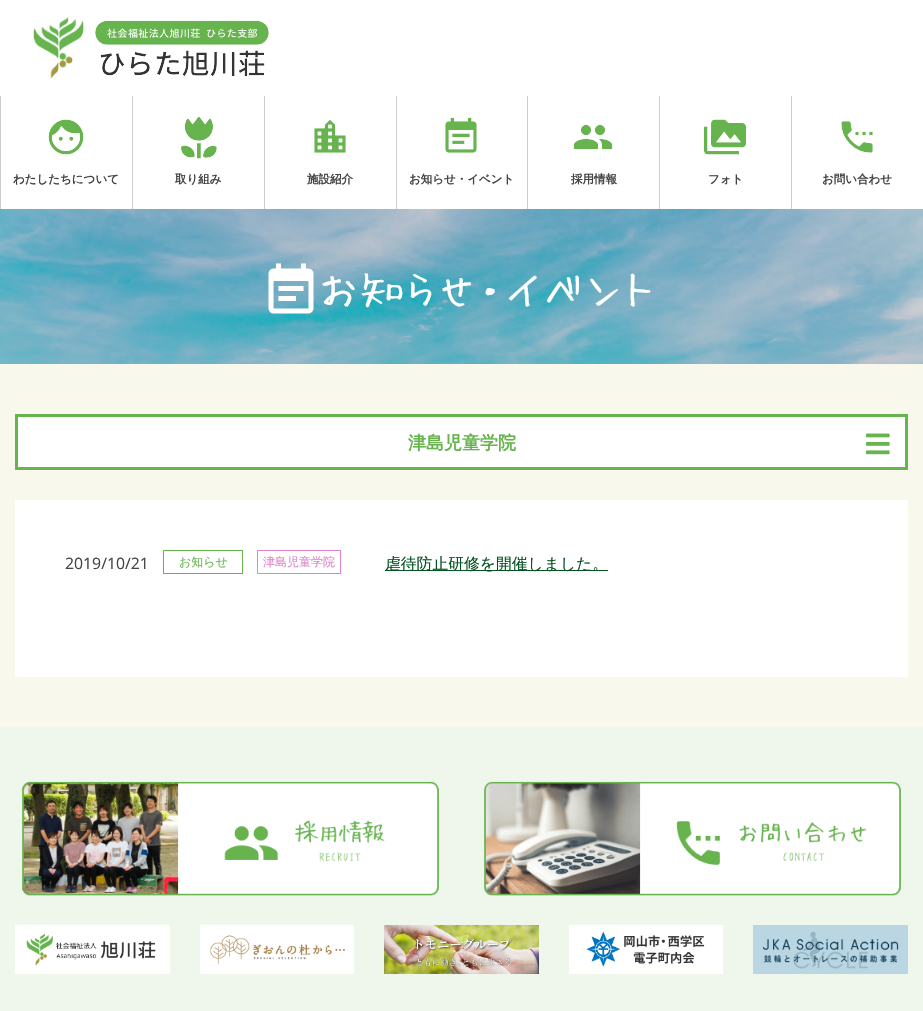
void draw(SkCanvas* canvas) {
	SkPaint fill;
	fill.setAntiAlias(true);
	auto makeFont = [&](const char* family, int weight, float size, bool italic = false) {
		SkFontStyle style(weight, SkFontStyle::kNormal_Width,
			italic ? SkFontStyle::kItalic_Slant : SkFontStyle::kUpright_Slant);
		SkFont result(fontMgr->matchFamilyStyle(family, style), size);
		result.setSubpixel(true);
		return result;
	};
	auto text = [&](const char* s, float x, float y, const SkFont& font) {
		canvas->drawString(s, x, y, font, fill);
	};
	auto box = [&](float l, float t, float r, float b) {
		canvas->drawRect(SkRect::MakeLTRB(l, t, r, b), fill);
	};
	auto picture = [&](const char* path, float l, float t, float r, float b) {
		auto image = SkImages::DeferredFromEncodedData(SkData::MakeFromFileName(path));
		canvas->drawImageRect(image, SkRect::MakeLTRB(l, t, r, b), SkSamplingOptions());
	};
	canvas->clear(0xFFFFFFFF);
	picture("image0.png", 33, 17, 269, 79);
	fill.setColor(0xFFCCCCCC);
	box(0, 96, 1, 209);
	picture("image1.png", 48, 119, 84, 155);
	box(132, 96, 133, 209);
	picture("image2.png", 181, 117, 217, 159);
	box(264, 96, 265, 209);
	picture("image3.png", 314, 120, 346, 153);
	box(396, 96, 397, 209);
	picture("image4.png", 445, 117, 477, 153);
	box(527, 96, 528, 209);
	picture("image5.png", 573, 125, 613, 150);
	box(659, 96, 660, 209);
	picture("image6.png", 704, 119, 746, 155);
	box(791, 96, 792, 209);
	picture("image7.png", 841, 121, 873, 153);
	picture("image8.png", 0, 209, 923, 364);
	picture("image9.png", 268, 263, 314, 314);
	fill.setColor(0xFFF8F8ED);
	box(0, 364, 923, 727);
	fill.setColor(0xFF67B44F);
	box(15, 414, 908, 417);
	box(905, 414, 908, 470);
	box(15, 414, 18, 470);
	fill.setColor(0xFFFFFFFF);
	box(18, 417, 905, 467);
	fill.setColor(0xFF67B44F);
	box(18, 467, 905, 470);
	picture("image10.png", 866, 433, 890, 455);
	fill.setColor(0xFFFFFFFF);
	box(15, 500, 908, 677);
	fill.setStyle(SkPaint::kStroke_Style);
	fill.setStrokeWidth(1);
	fill.setColor(0xFF67B44F);
	canvas->drawRect(SkRect::MakeLTRB(163.5f, 550.5f, 242.5f, 573.5f), fill);
	fill.setColor(0xFFE084CD);
	canvas->drawRect(SkRect::MakeLTRB(257.5f, 550.5f, 340.5f, 573.5f), fill);
	fill.setStyle(SkPaint::kFill_Style);
	fill.setColor(0xFF045222);
	box(385, 570, 608, 571);
	fill.setColor(0xFFEFF7ED);
	box(0, 727, 923, 1011);
	picture("image11.png", 22, 781, 439, 896);
	picture("image12.png", 484, 781, 901, 896);
	picture("image13.png", 15, 925, 170, 974);
	picture("image14.png", 200, 925, 354, 974);
	picture("image15.png", 384, 925, 539, 974);
	picture("image16.png", 569, 925, 723, 974);
	picture("image17.png", 753, 925, 908, 974);
	auto font1 = makeFont("WenQuanYi Zen Hei", 700, 11.5f);
	fill.setColor(0xFF444444);
	text("わたしたちについて", 13, 183, font1);
	text("取り組み", 175, 183, font1);
	text("施設紹介", 307, 183, font1);
	text("お知らせ・イベント", 409, 183, font1);
	text("採用情報", 571, 183, font1);
	text("フォト", 708, 183, font1);
	text("お問い合わせ", 822, 183, font1);
	auto font2 = makeFont("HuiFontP", 400, 46);
	fill.setColor(0xFFFFFFFF);
	text("お知らせ・イベント", 317, 303, font2);
	auto font3 = makeFont("WenQuanYi Zen Hei", 700, 18);
	fill.setColor(0xFF67B44F);
	text("津島児童学院", 408, 449, font3);
	auto font4 = makeFont("Open Sans", 400, 15.8f);
	fill.setColor(0xFF444444);
	text("2019/10/21", 65, 569, font4);
	auto font5 = makeFont("WenQuanYi Zen Hei", 500, 12);
	fill.setColor(0xFF67B44F);
	text("お知らせ", 179, 566, font5);
	fill.setColor(0xFFE084CD);
	text("津島児童学院", 263, 566, font5);
	auto font6 = makeFont("WenQuanYi Zen Hei", 500, 15.8f);
	fill.setColor(0xFF045222);
	text("虐待防止研修を開催しました。", 385, 569, font6);
}
